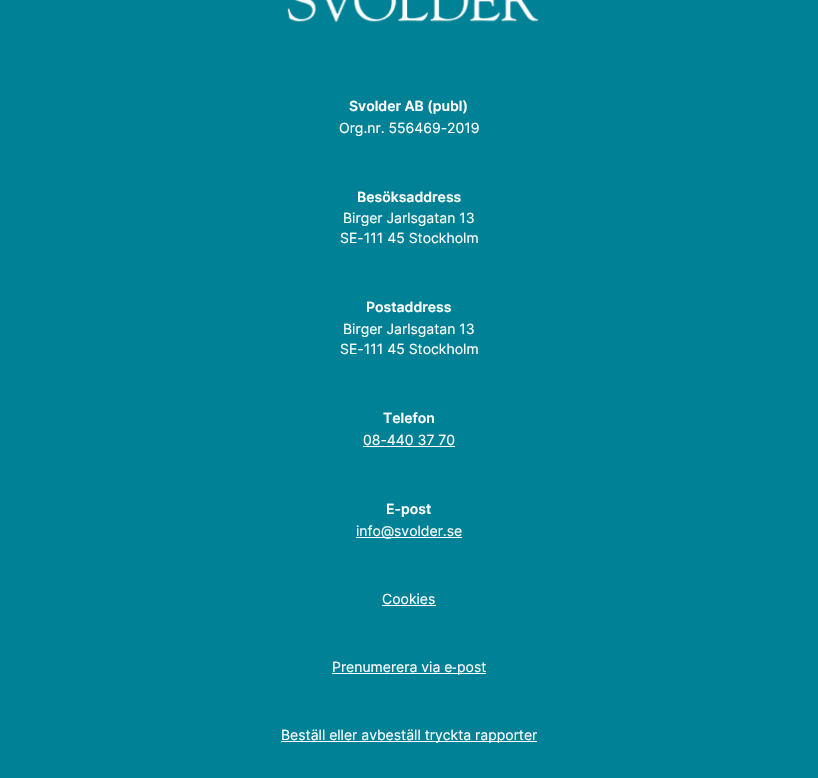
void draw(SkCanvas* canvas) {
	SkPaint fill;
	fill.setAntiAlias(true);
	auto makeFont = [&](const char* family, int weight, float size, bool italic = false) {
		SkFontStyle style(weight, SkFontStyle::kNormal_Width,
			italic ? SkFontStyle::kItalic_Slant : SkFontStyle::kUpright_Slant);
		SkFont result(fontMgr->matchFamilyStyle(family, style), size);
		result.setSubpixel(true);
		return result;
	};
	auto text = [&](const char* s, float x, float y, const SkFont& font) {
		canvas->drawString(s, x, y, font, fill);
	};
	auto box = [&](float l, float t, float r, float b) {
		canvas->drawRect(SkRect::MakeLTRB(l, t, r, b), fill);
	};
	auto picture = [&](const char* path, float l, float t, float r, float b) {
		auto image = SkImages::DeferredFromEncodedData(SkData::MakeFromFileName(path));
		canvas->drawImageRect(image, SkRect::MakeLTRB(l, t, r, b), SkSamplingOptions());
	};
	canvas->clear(0xFF008195);
	picture("image0.png", 287, 0, 539, 23);
	fill.setColor(0xFFFFFFFF);
	box(363, 446, 455, 447);
	box(356, 537, 462, 538);
	box(382, 605, 436, 606);
	box(332, 673, 486, 674);
	box(281, 741, 537, 742);
	auto font1 = makeFont("Inter", 600, 14);
	text("Svolder AB (publ)", 349, 111, font1);
	auto font2 = makeFont("Inter", 400, 14);
	text("Org.nr. 556469-2019", 339, 133, font2);
	text("Besöksaddress", 357, 202, font1);
	text("Birger Jarlsgatan 13", 343, 223, font2);
	text("SE-111 45 Stockholm", 340, 243, font2);
	text("Postaddress", 366, 312, font1);
	text("Birger Jarlsgatan 13", 343, 334, font2);
	text("SE-111 45 Stockholm", 340, 354, font2);
	text("Telefon", 383, 423, font1);
	text("08-440 37 70", 363, 445, font2);
	text("E-post", 386, 514, font1);
	text("info@svolder.se", 356, 536, font2);
	text("Cookies", 382, 604, font2);
	text("Prenumerera via e", 332, 672, font2);
	auto font3 = makeFont("Noto Sans", 400, 14);
	text("‑", 452, 672, font3);
	text("post", 457, 672, font2);
	text("Beställ eller avbeställ tryckta rapporter", 281, 740, font2);
}
